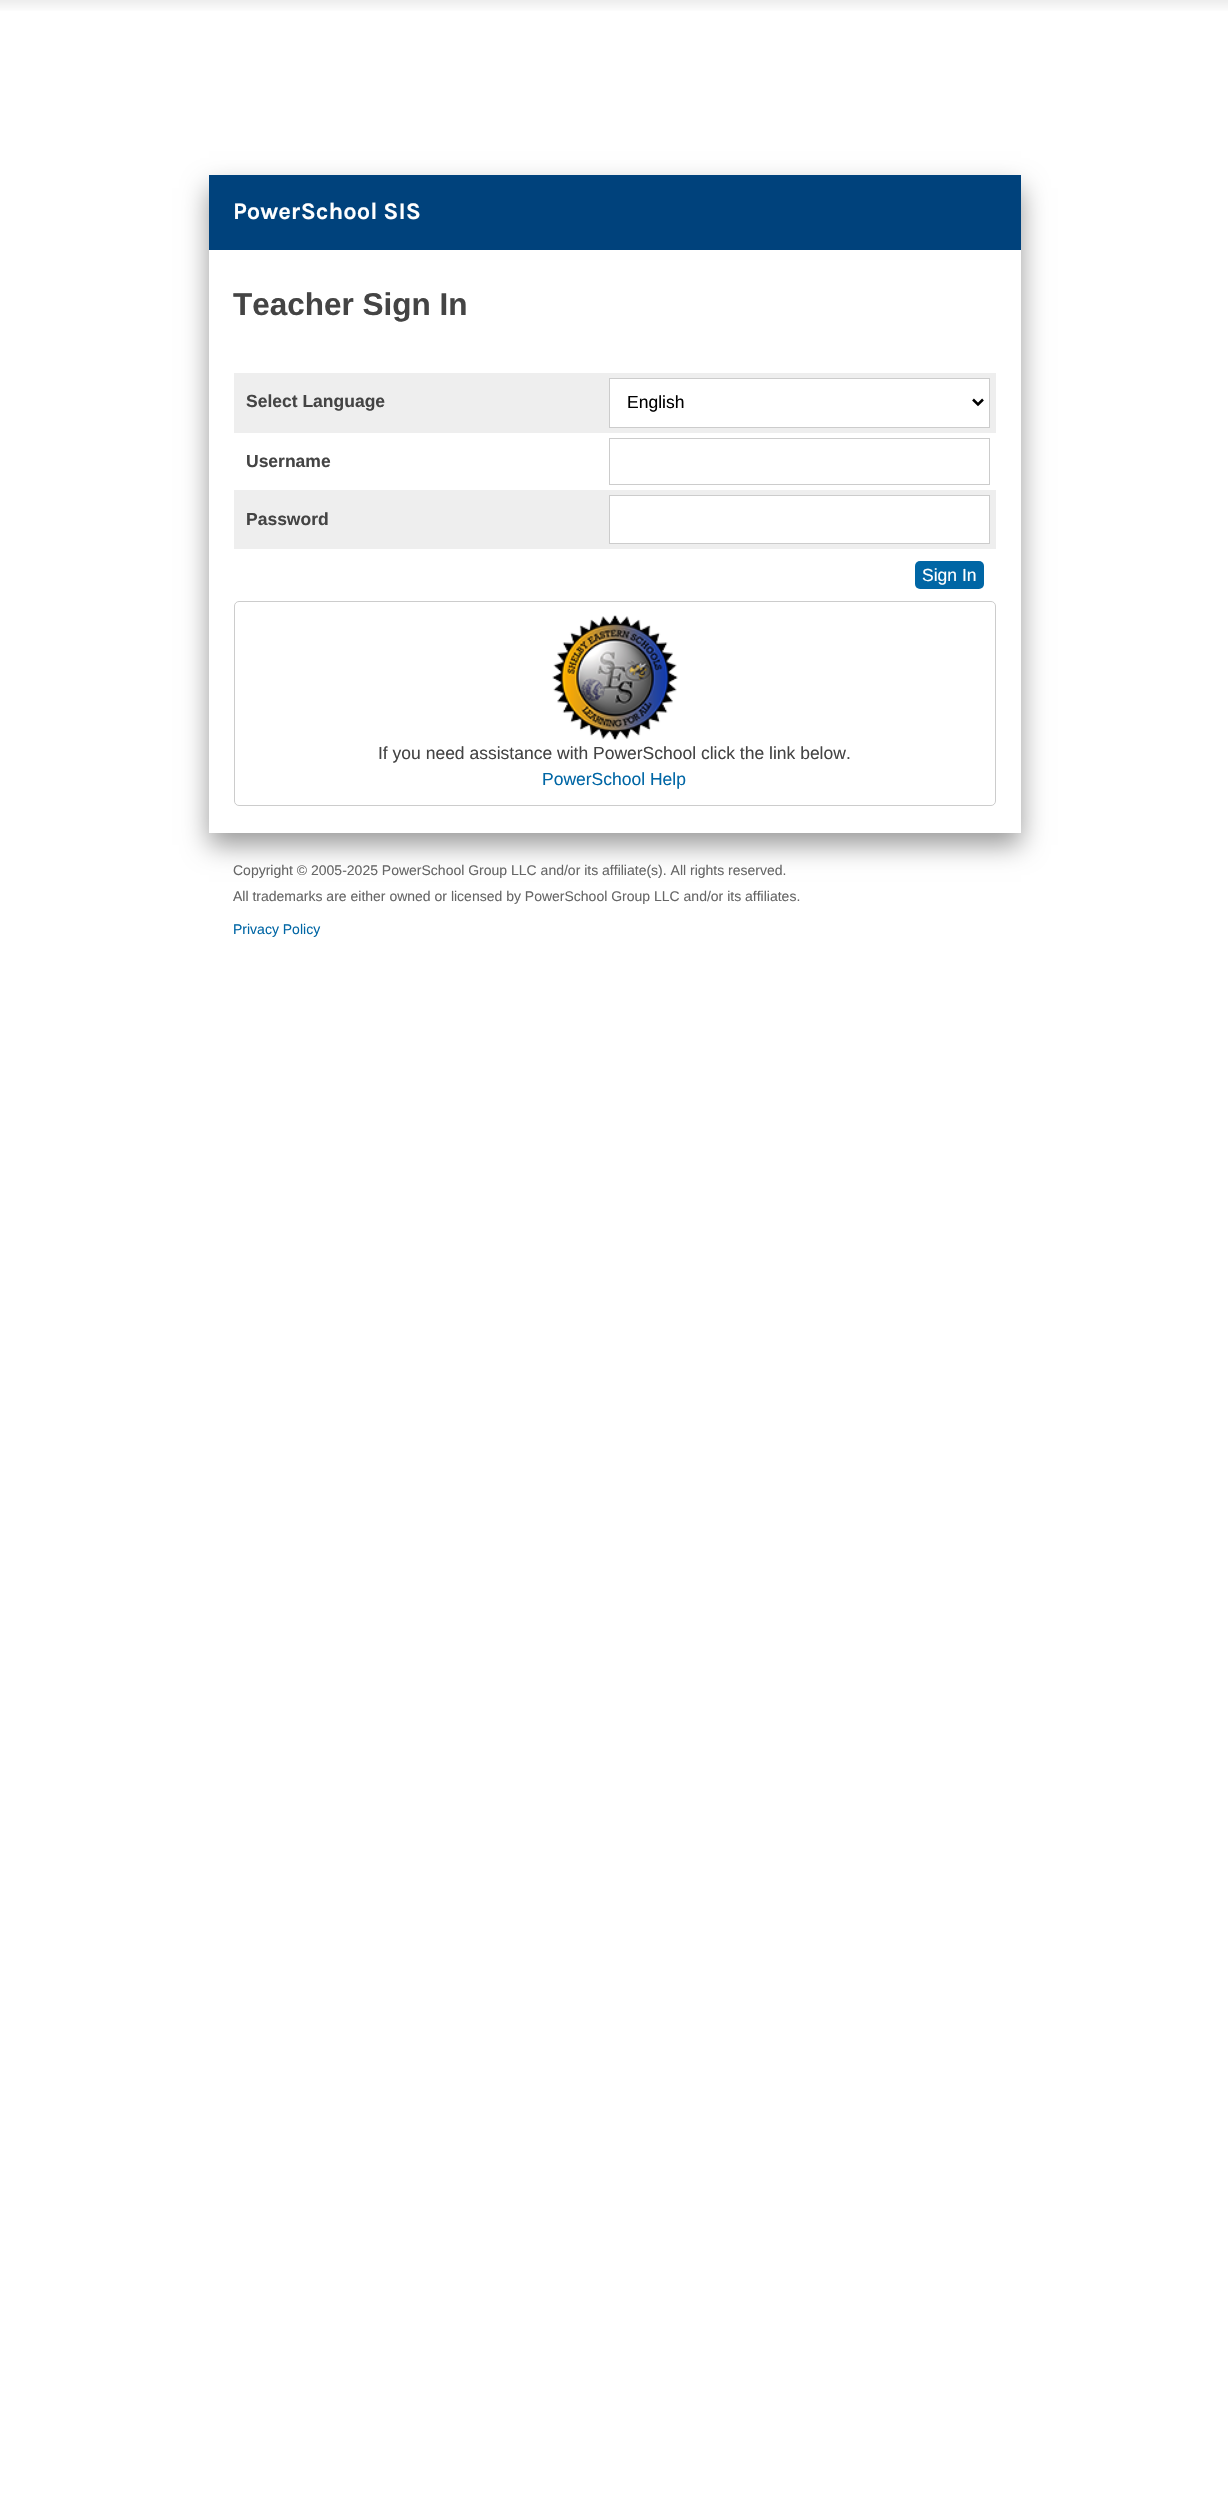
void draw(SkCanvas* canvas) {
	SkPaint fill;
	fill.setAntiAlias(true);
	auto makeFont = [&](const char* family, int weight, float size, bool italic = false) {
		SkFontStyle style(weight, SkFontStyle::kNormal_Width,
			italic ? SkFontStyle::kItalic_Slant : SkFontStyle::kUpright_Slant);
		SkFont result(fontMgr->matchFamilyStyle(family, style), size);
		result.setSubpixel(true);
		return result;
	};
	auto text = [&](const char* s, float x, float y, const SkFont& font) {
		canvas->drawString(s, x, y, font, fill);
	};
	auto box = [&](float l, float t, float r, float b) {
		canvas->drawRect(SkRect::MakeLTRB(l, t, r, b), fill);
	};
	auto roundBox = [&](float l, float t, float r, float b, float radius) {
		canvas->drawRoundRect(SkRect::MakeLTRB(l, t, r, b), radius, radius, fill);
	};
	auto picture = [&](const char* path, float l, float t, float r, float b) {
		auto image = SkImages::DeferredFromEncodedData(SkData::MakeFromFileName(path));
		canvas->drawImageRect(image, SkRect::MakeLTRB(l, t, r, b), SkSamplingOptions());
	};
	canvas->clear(0xFFFFFFFF);
	{
		const SkColor colors[] = {0xFFEDEDED, 0xFFFFFFFF};
		const float stops[] = {0, 1};
		const SkPoint ends[] = {{0, 0}, {0, 13}};
		fill.setShader(SkGradientShader::MakeLinear(ends, colors, stops, 2, SkTileMode::kClamp));
		fill.setAlpha(255);
	}
	box(0, 0, 1228, 11);
	fill.setShader(nullptr);
	fill.setColor(0x66000000);
	fill.setMaskFilter(SkMaskFilter::MakeBlur(kNormal_SkBlurStyle, 12.5f));
	canvas->drawRect(SkRect::MakeLTRB(209, 188, 1021, 845), fill);
	fill.setMaskFilter(nullptr);
	fill.setColor(0xFFFFFFFF);
	box(209, 250, 1021, 833);
	fill.setColor(0xFF00427C);
	box(209, 175, 1021, 250);
	fill.setColor(0xFFEEEEEE);
	box(234, 373, 996, 433);
	fill.setColor(0xFFFFFFFF);
	canvas->drawRect(SkRect::MakeLTRB(609.5f, 378.5f, 989.5f, 427.5f), fill);
	fill.setStyle(SkPaint::kStroke_Style);
	fill.setStrokeWidth(1);
	fill.setColor(0xFFCCCCCC);
	canvas->drawRect(SkRect::MakeLTRB(609.5f, 378.5f, 989.5f, 427.5f), fill);
	fill.setStrokeWidth(2.5f);
	fill.setColor(0xFF000000);
	canvas->drawPath(SkPathBuilder().moveTo(973, 399.5f).lineTo(978, 404.5f).lineTo(983, 399.5f).detach(), fill);
	fill.setStrokeWidth(1);
	fill.setColor(0xFFCCCCCC);
	canvas->drawRect(SkRect::MakeLTRB(609.5f, 438.5f, 989.5f, 484.5f), fill);
	fill.setStyle(SkPaint::kFill_Style);
	fill.setColor(0xFFEEEEEE);
	box(234, 490, 996, 549);
	fill.setColor(0xFFFFFFFF);
	canvas->drawRect(SkRect::MakeLTRB(609.5f, 495.5f, 989.5f, 543.5f), fill);
	fill.setStyle(SkPaint::kStroke_Style);
	fill.setColor(0xFFCCCCCC);
	canvas->drawRect(SkRect::MakeLTRB(609.5f, 495.5f, 989.5f, 543.5f), fill);
	fill.setStyle(SkPaint::kFill_Style);
	fill.setColor(0xFF0066A5);
	roundBox(915, 561, 984, 589, 5);
	fill.setStyle(SkPaint::kStroke_Style);
	fill.setColor(0xFFCCCCCC);
	canvas->drawRoundRect(SkRect::MakeLTRB(234.5f, 601.5f, 995.5f, 805.5f), 4.5f, 4.5f, fill);
	picture("image0.png", 552, 615, 678, 740);
	auto font1 = makeFont("Karla", 700, 23.75f);
	fill.setStyle(SkPaint::kFill_Style);
	fill.setColor(0xFFFFFFFF);
	text("PowerSchool SIS", 233, 219, font1);
	auto font2 = makeFont("Liberation Sans", 700, 31.5f);
	fill.setColor(0xFF444444);
	text("Teacher Sign In", 233, 315, font2);
	auto font3 = makeFont("Liberation Sans", 700, 17.5f);
	text("Select Language", 246, 407, font3);
	auto font4 = makeFont("Liberation Sans", 400, 17.5f);
	fill.setColor(0xFF000000);
	text("English", 627, 408, font4);
	fill.setColor(0xFF444444);
	text("Username", 246, 467, font3);
	text("Password", 246, 525, font3);
	fill.setColor(0xFFFFFFFF);
	text("Sign In", 922, 581, font4);
	fill.setColor(0xFF444444);
	text("If you need assistance with PowerSchool click the link below.", 378, 759, font4);
	fill.setColor(0xFF0066A5);
	text("PowerSchool Help", 542, 785, font4);
	auto font5 = makeFont("Liberation Sans", 400, 14);
	fill.setColor(0xFF666666);
	text("Copyright © 2005-2025 PowerSchool Group LLC and/or its affiliate(s). All rights reserved.", 233, 875, font5);
	text("All trademarks are either owned or licensed by PowerSchool Group LLC and/or its affiliates.", 233, 901, font5);
	fill.setColor(0xFF0066A5);
	text("Privacy Policy", 233, 934, font5);
}
